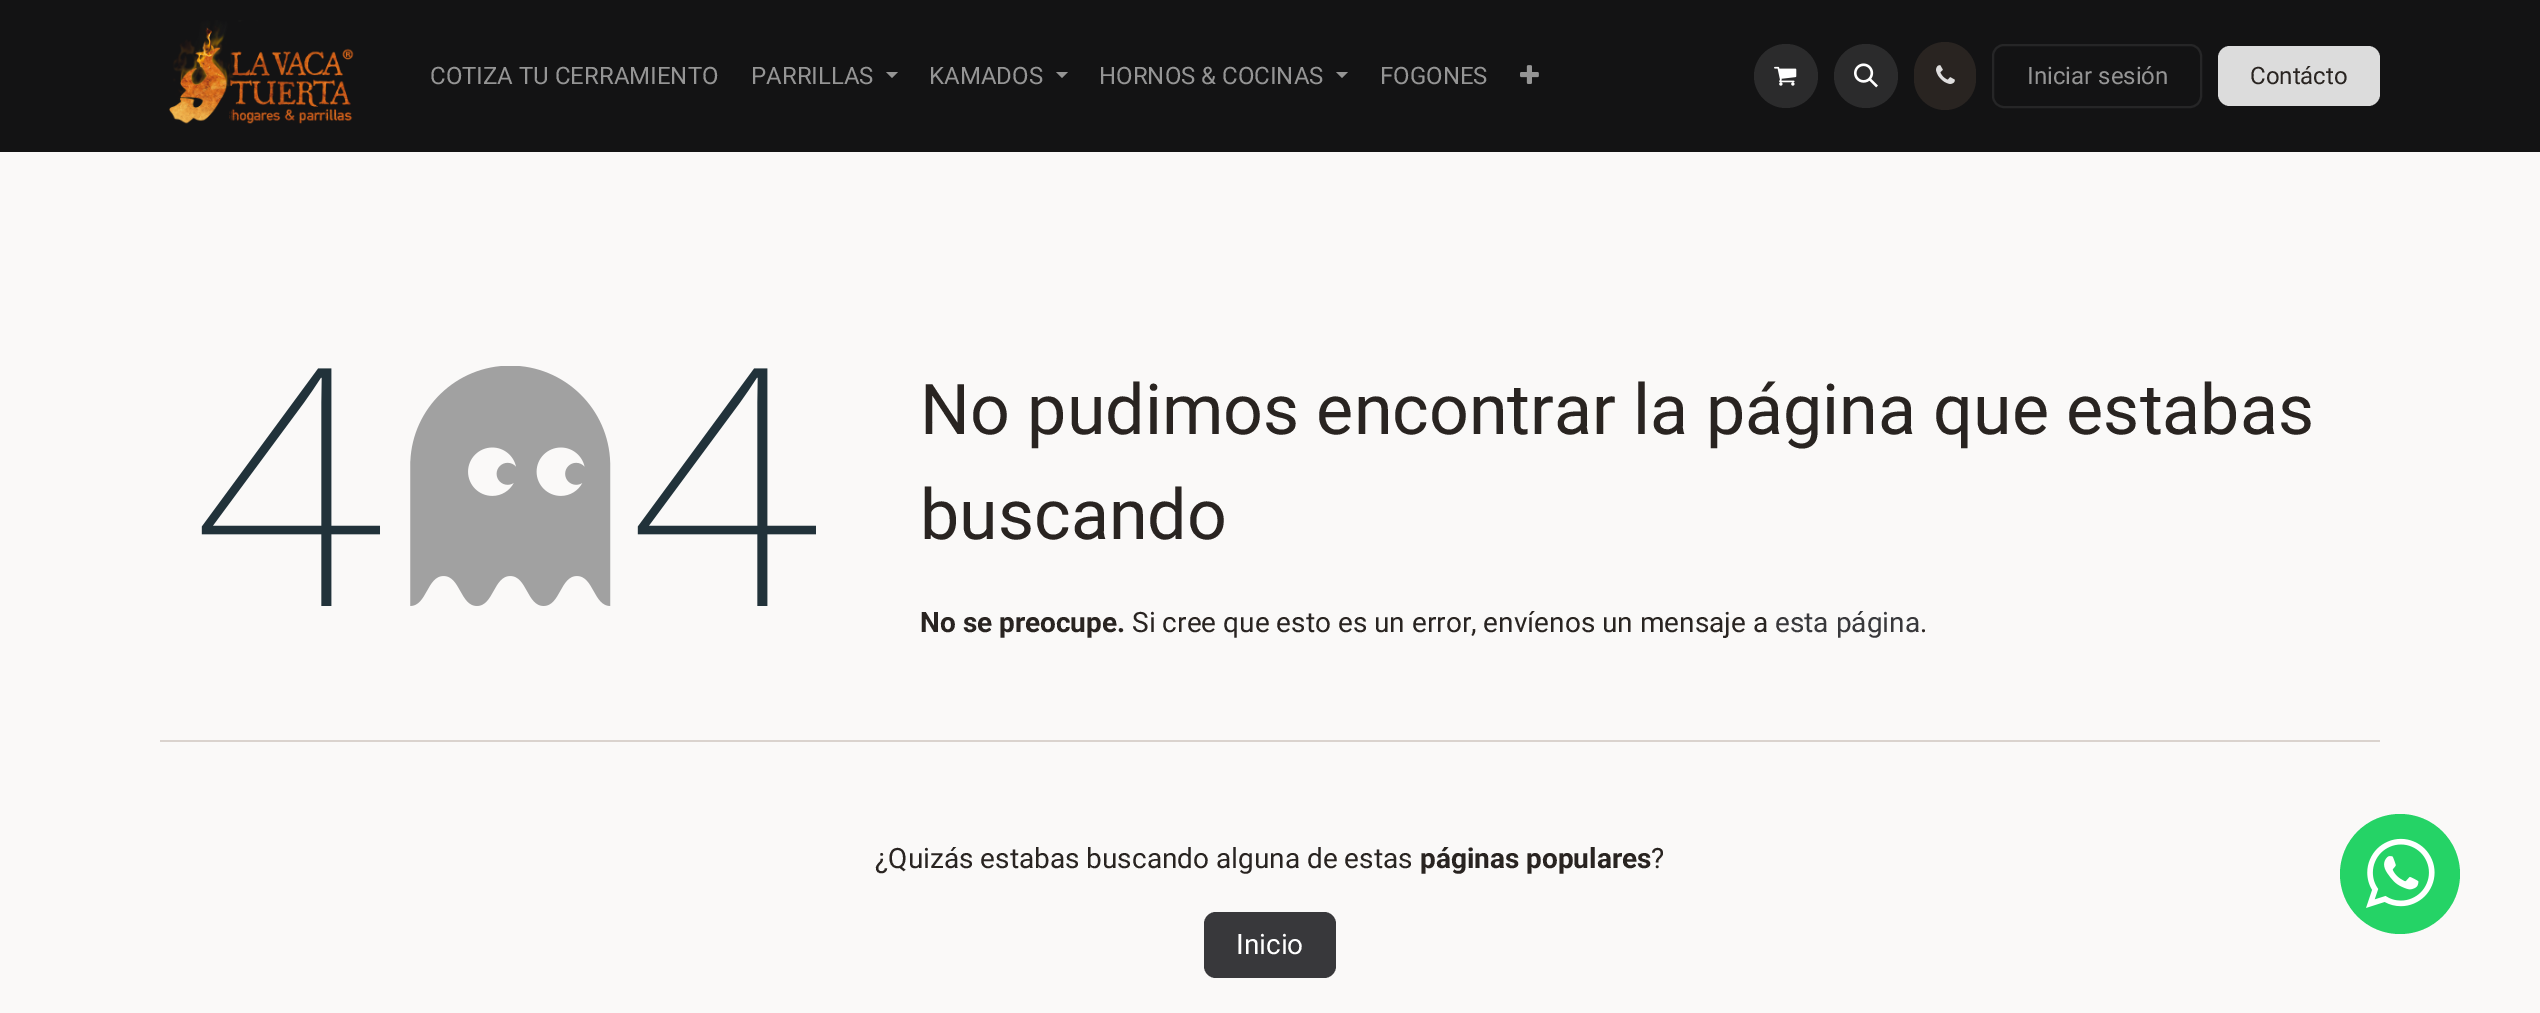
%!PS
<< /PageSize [2540 1013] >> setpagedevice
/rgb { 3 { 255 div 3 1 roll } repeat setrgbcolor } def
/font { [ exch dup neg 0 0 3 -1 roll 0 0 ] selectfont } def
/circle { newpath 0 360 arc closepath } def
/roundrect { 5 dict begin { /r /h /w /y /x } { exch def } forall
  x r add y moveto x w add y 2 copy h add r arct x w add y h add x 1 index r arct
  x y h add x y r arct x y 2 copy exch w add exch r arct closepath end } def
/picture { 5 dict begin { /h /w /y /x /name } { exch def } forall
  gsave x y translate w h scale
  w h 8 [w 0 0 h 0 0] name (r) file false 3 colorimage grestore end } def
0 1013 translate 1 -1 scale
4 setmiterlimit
250 249 248 rgb
0 0 2540 1013 rectfill
19 19 20 rgb
0 0 2540 152 rectfill
(img/1.rgb) 169 20 185 104 picture
149 149 149 rgb
886 72 moveto 898 72 lineto 892 78 lineto closepath fill
1056 72 moveto 1068 72 lineto 1062 78 lineto closepath fill
1336 72 moveto 1348 72 lineto 1342 78 lineto closepath fill
(img/2.rgb) 1520 65 19 19 picture
43 43 44 rgb
1786 76 32 circle fill
(img/3.rgb) 1774 66 23 20 picture
1866 76 32 circle fill
(img/4.rgb) 1854 63 24 25 picture
41 36 33 rgb
1914 42 62 68 31 roundrect fill
(img/5.rgb) 1936 65 19 19 picture
38 38 39 rgb
2 setlinewidth
1993 45 208 62 11 roundrect stroke
220 220 220 rgb
2218 46 162 60 12 roundrect fill
(img/6.rgb) 201 366 615 240 picture
218 211 206 rgb
160 740 2220 2 rectfill
56 56 59 rgb
1204 912 132 66 12 roundrect fill
37 211 102 rgb
2400 874 60 circle fill
(img/7.rgb) 2366 838 69 70 picture
/Roboto-Regular 24 font
149 149 149 rgb
[
  [(COTIZA TU CERRAMIENTO) 430 84]
  [(PARRILLAS) 751 84]
  [(KAMADOS) 929 84]
  [(HORNOS & COCINAS) 1099 84]
  [(FOGONES) 1380 84]
  [(Iniciar sesión) 2027 84]
] { aload pop moveto show } forall
41 36 33 rgb
2250 84 moveto (Contácto) show
/Roboto-Regular 70 font
920 434 moveto (No pudimos encontrar la página que estabas) show
920 539 moveto (buscando) show
/Roboto-Bold 28 font
920 632 moveto (No se preocupe.) show
/Roboto-Regular 28 font
1132 632 moveto (Si cree que esto es un error, envíenos un mensaje a) show
56 56 59 rgb
1775 632 moveto (esta página) show
41 36 33 rgb
1920 632 moveto (.) show
875 868 moveto (¿Quizás estabas buscando alguna de estas) show
/Roboto-Bold 28 font
1420 868 moveto (páginas populares) show
/Roboto-Regular 28 font
1651 868 moveto (?) show
255 255 255 rgb
1236 954 moveto (Inicio) show
showpage
